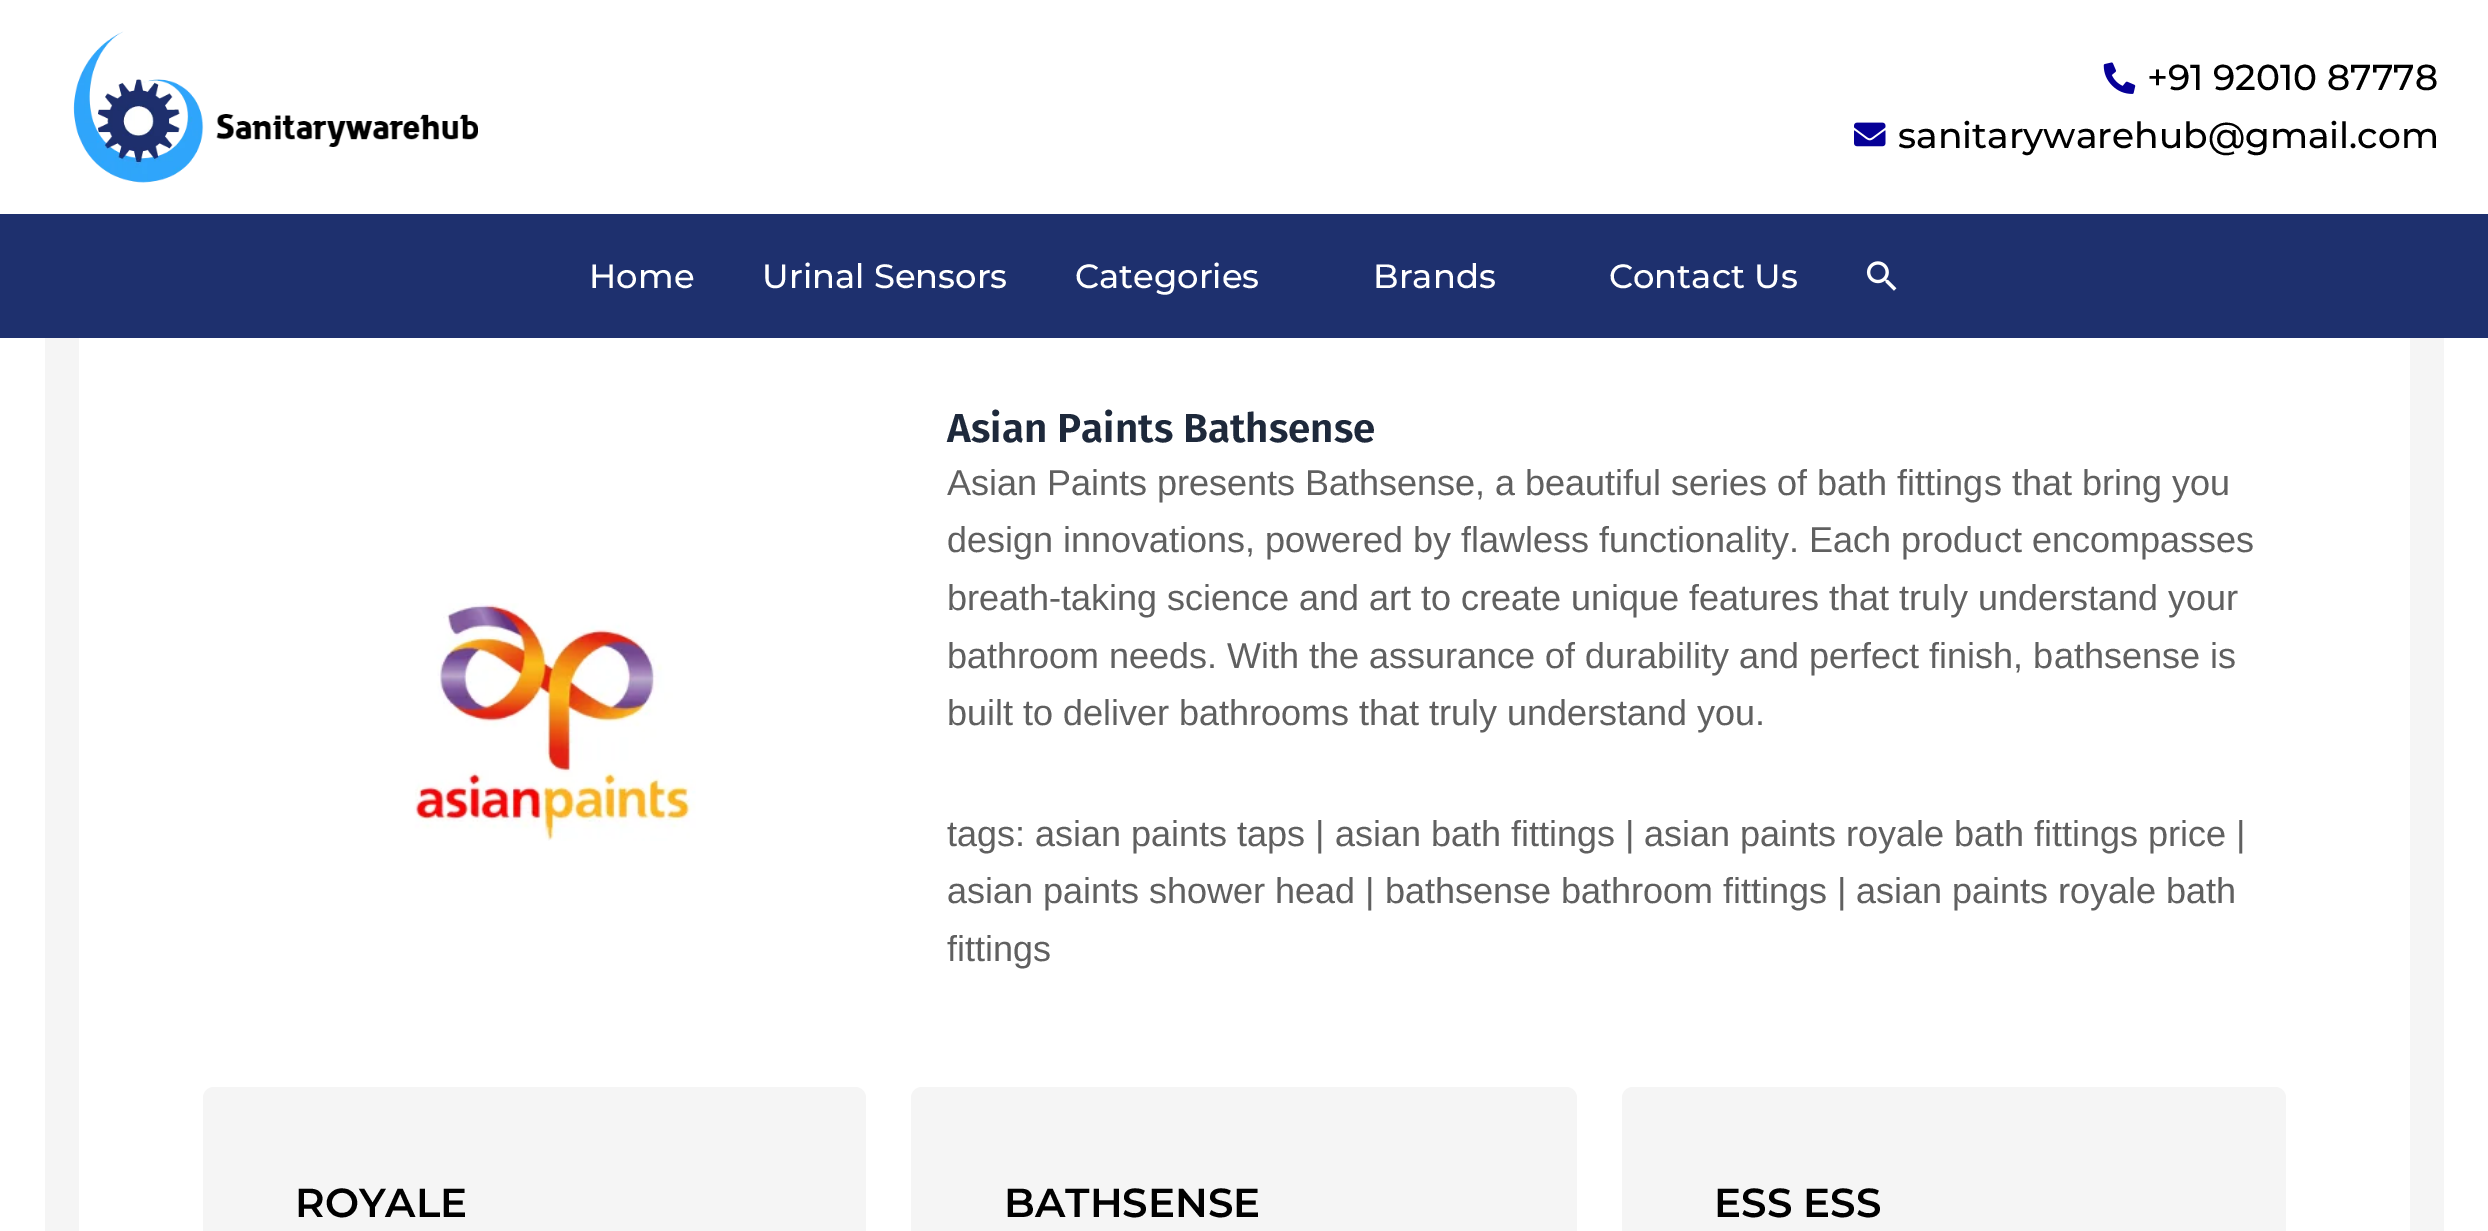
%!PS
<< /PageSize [2488 1231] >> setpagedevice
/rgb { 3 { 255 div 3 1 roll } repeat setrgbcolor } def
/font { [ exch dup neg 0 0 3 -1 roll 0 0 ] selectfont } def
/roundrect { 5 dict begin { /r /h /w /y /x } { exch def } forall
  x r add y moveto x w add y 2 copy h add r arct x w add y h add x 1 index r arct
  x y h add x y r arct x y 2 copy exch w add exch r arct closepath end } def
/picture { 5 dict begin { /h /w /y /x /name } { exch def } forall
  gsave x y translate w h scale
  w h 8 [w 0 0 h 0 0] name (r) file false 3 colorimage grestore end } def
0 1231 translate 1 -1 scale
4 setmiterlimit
255 255 255 rgb
0 0 2488 1231 rectfill
(img/1.rgb) 73 31 405 152 picture
(img/2.rgb) 2103 62 33 32 picture
(img/3.rgb) 1854 122 32 25 picture
30 48 110 rgb
0 214 2488 124 rectfill
(img/4.rgb) 1866 261 31 30 picture
245 245 245 rgb
45 338 2399 893 rectfill
255 255 255 rgb
79 338 2331 893 rectfill
(img/5.rgb) 414 603 282 238 picture
245 245 245 rgb
203 1087 663 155 11 roundrect fill
911 1087 666 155 11 roundrect fill
1622 1087 664 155 11 roundrect fill
/Montserrat-Medium 36 font
0 0 0 rgb
2147 90 moveto (+91 92010 87778) show
1898 148 moveto (sanitarywarehub@gmail.com) show
/Montserrat-Medium 33.75 font
255 255 255 rgb
[
  [(Home) 589 288]
  [(Urinal Sensors) 762 288]
  [(Categories) 1075 288]
  [(Brands) 1373 288]
  [(Contact Us) 1609 288]
] { aload pop moveto show } forall
/FiraSans-SemiBold 40.5 font
30 41 59 rgb
947 442 moveto (Asian Paints Bathsense) show
/LiberationSans-Regular 36 font
96 96 96 rgb
[
  [(Asian Paints presents Bathsense, a beautiful series of bath fittings that bring you) 947 495]
  [(design innovations, powered by flawless functionality. Each product encompasses) 947 552]
  [(breath-taking science and art to create unique features that truly understand your) 947 610]
  [(bathroom needs. With the assurance of durability and perfect finish, bathsense is) 947 668]
  [(built to deliver bathrooms that truly understand you.) 947 725]
  [(tags: asian paints taps | asian bath fittings | asian paints royale bath fittings price |) 947 846]
  [(asian paints shower head | bathsense bathroom fittings | asian paints royale bath) 947 903]
  [(fittings) 947 961]
] { aload pop moveto show } forall
/Montserrat-SemiBold 40.5 font
0 0 0 rgb
[
  [(ROYALE) 295 1217]
  [(BATHSENSE) 1004 1217]
  [(ESS ESS) 1714 1217]
] { aload pop moveto show } forall
showpage
